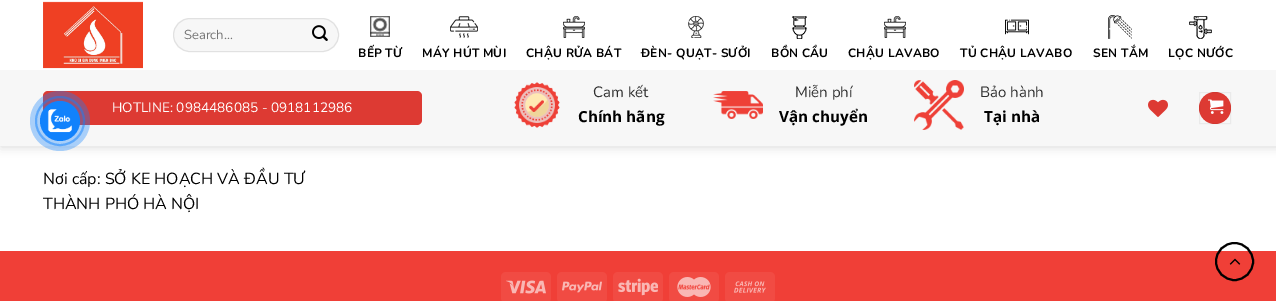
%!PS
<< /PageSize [1276 301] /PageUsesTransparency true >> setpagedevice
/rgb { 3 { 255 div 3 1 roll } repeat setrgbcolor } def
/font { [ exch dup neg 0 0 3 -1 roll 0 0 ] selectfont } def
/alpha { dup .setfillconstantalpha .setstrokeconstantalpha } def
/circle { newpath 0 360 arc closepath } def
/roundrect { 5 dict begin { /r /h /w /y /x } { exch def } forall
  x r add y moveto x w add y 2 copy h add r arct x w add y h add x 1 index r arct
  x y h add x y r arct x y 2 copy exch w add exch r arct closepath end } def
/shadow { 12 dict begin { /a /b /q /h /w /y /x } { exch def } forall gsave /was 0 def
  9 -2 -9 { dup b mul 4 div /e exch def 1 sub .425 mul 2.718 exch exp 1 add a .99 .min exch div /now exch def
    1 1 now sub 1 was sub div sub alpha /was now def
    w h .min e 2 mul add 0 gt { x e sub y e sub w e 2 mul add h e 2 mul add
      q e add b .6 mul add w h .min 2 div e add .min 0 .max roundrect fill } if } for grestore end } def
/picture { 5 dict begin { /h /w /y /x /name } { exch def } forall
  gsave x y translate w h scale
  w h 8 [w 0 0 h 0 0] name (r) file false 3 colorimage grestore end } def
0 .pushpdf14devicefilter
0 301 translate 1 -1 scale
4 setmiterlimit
255 255 255 rgb
0 0 1276 301 rectfill
0 0 0 rgb
1 1 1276 146 0 5 0.15 shadow
255 255 255 rgb
0 0 1276 70 rectfill
(img/1.rgb) 43 1 100 68 picture
247 247 247 rgb
173 18 166 34 17 roundrect fill
0.09 alpha
0 0 0 rgb
173.5 18.5 165 33 16.5 roundrect stroke
1 alpha
(img/2.rgb) 312 25 16 16 picture
(img/3.rgb) 370 16 20 21 picture
(img/4.rgb) 450 16 28 22 picture
(img/5.rgb) 563 16 22 22 picture
(img/6.rgb) 688 16 16 22 picture
(img/7.rgb) 792 16 15 23 picture
(img/5.rgb) 884 16 22 22 picture
(img/8.rgb) 1005 19 24 16 picture
(img/9.rgb) 1108 15 24 24 picture
(img/10.rgb) 1189 16 23 23 picture
247 247 247 rgb
0 70 1276 76 rectfill
221 58 51 rgb
43 91 379 34 5 roundrect fill
(img/11.rgb) 514 82 46 46 picture
(img/12.rgb) 713 91 50 28 picture
(img/13.rgb) 914 80 50 50 picture
(img/14.rgb) 1148 99 20 18 picture
1215 108 16 circle fill
0.05 alpha
0 0 0 rgb
1199.5 92.5 31 31 rectstroke
1 alpha
(img/15.rgb) 1208 99 16 15 picture
240 63 55 rgb
0 251 1276 50 rectfill
0 0 0 rgb
2 setlinewidth
1234.5 261.5 18.5 circle stroke
(img/16.rgb) 1229 258 12 7 picture
241 75 67 rgb
501 272 50 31 5 roundrect fill
(img/17.rgb) 506 280 40 14 picture
557 272 50 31 5 roundrect fill
(img/18.rgb) 562 281 40 12 picture
613 272 50 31 5 roundrect fill
(img/19.rgb) 618 278 40 18 picture
669 272 50 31 5 roundrect fill
(img/20.rgb) 677 277 34 20 picture
725 272 50 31 5 roundrect fill
(img/21.rgb) 734 281 32 12 picture
0.5 alpha
17 130 252 rgb
60 121 24 circle stroke
0.34 alpha
60 121 30 circle fill
1 alpha
60 121 20 circle fill
(img/22.rgb) 47 109 25 24 picture
/Nunito-Regular 13 font
117 117 117 rgb
184 39 moveto (Search…) show
/Nunito-Bold 12 font
0 0 0 rgb
358 57 moveto 0.25 0 (BẾP TỪ) ashow
422 57 moveto 0.25 0 (MÁY HÚT MÙI) ashow
526 57 moveto 0.25 0 (CHẬU RỬA BÁT) ashow
641 57 moveto 0.25 0 (ĐÈN- QUẠT- SƯỞI) ashow
771 57 moveto 0.25 0 (BỒN CẦU) ashow
848 57 moveto 0.25 0 (CHẬU LAVABO) ashow
960 57 moveto 0.25 0 (TỦ CHẬU LAVABO) ashow
1093 57 moveto 0.25 0 (SEN TẮM) ashow
1168 57 moveto 0.25 0 (LỌC NƯỚC) ashow
/Nunito-Regular 13.6 font
255 255 255 rgb
112 112 moveto (HOTLINE: 0984486085 - 0918112986) show
/Nunito-Regular 15 font
47 47 47 rgb
593 97 moveto (Cam kết) show
/OpenSans-Bold 15.25 font
0 0 0 rgb
578 122 moveto (Chính hãng) show
/Nunito-Regular 15 font
47 47 47 rgb
795 97 moveto (Miễn phí) show
/OpenSans-Bold 15.25 font
0 0 0 rgb
779 122 moveto (Vận chuyển) show
/Nunito-Regular 15 font
47 47 47 rgb
980 97 moveto (Bảo hành) show
/OpenSans-Bold 15.25 font
0 0 0 rgb
984 122 moveto (Tại nhà) show
/Nunito-Regular 16 font
43 184 moveto (Nơi cấp: SỞ KE HOẠCH VÀ ĐẦU TƯ) show
43 209 moveto (THÀNH PHÓ HÀ NỘI) show
.poppdf14devicefilter showpage
